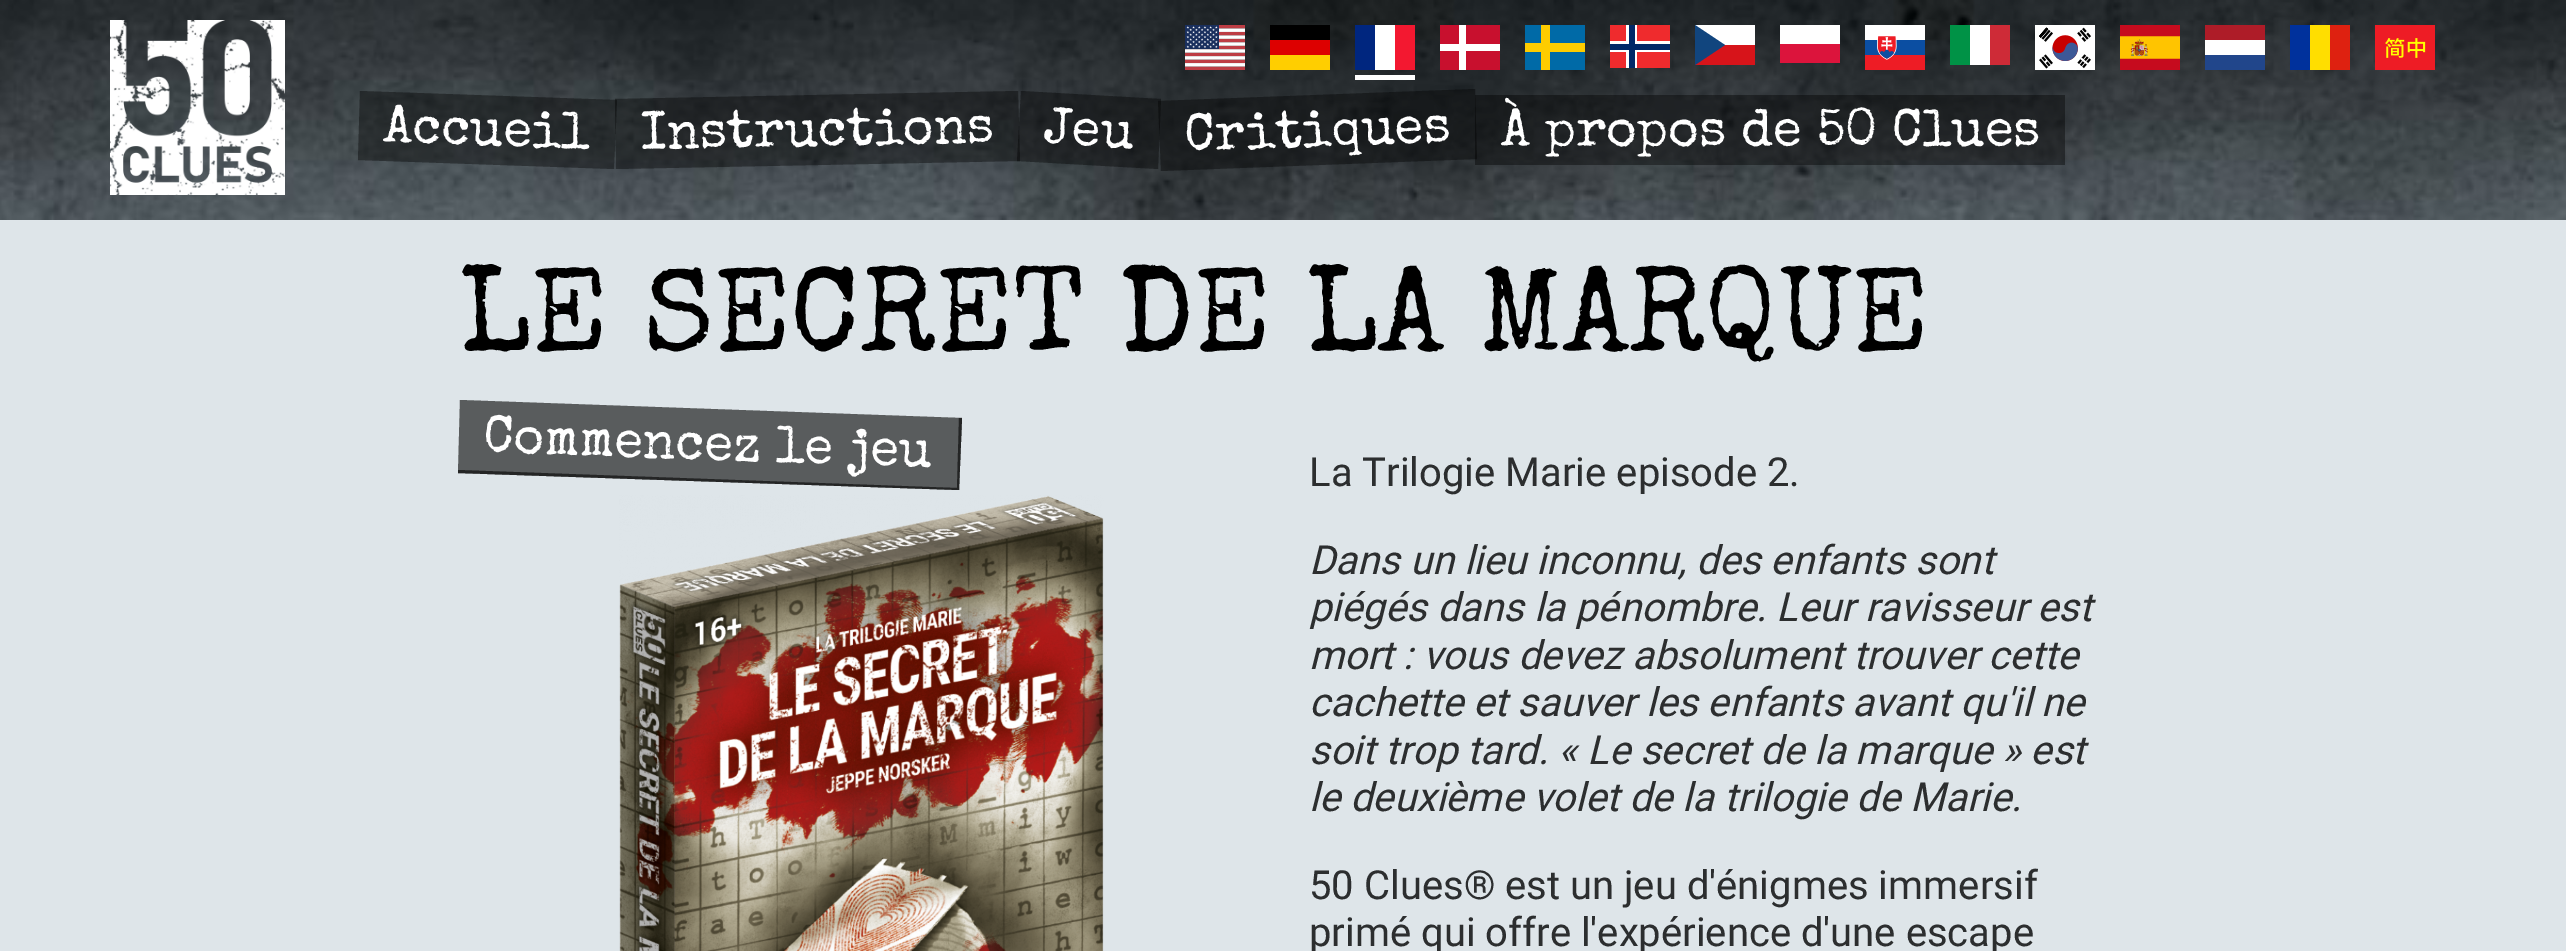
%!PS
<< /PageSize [2566 951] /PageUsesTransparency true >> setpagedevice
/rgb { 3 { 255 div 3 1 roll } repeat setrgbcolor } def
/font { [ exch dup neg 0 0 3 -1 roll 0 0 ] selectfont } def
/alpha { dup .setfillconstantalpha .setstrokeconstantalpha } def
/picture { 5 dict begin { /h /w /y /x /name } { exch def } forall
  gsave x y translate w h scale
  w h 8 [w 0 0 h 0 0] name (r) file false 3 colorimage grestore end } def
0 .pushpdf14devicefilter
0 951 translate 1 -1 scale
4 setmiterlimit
222 229 233 rgb
0 0 2566 951 rectfill
(img/1.rgb) 0 0 2566 220 picture
(img/2.rgb) 1185 25 60 45 picture
[
  [1270 55 60 15 255 206 0]
  [1270 25 60 15 0 0 0]
  [1270 40 60 15 221 0 0]
  [1355 75 60 5 255 255 255]
  [1375 25 20 45 255 255 255]
  [1355 25 20 45 0 38 127]
  [1395 25 20 45 243 24 48]
  [1440 25 60 45 200 16 46]
  [1459 25 7 45 255 255 255]
  [1440 44 60 7 255 255 255]
] { aload pop rgb rectfill } forall
0 106 167 rgb
1525 70 moveto 1542 70 lineto 1542 52 lineto 1525 52 lineto closepath 1525 25 moveto 1525 43 lineto 1542 43 lineto 1542 25 lineto closepath eofill
[
  [1525 43 16 9 254 204 0]
  [1541 25 9 45 254 204 0]
  [1550 43 35 9 254 204 0]
] { aload pop rgb rectfill } forall
0 106 167 rgb
1550 52 moveto 1550 70 lineto 1585 70 lineto 1585 52 lineto closepath 1550 25 moveto 1550 43 lineto 1585 43 lineto 1585 25 lineto closepath eofill
[
  [1610 25 60 43 239 43 45]
  [1626 25 11 43 255 255 255]
  [1610 41 60 11 255 255 255]
  [1629 25 6 43 0 40 104]
  [1610 44 60 6 0 40 104]
  [1695 45 60 20 215 20 26]
  [1695 25 60 20 255 255 255]
] { aload pop rgb rectfill } forall
17 69 126 rgb
1725 45 moveto 1695 25 lineto 1695 65 lineto closepath fill
255 255 255 rgb
1780 25 60 19 rectfill
220 20 60 rgb
1780 44 60 19 rectfill
(img/3.rgb) 1865 25 60 45 picture
[
  [1950 25 20 40 0 146 70]
  [1970 25 20 40 255 255 255]
  [1990 25 20 40 206 43 55]
] { aload pop rgb rectfill } forall
(img/4.rgb) 2035 25 60 45 picture
(img/5.rgb) 2120 25 60 45 picture
[
  [2205 40 60 15 255 255 255]
  [2205 55 60 15 33 70 139]
  [2205 25 60 15 174 28 40]
  [2290 25 20 45 0 49 156]
  [2310 25 20 45 255 222 0]
  [2330 25 20 45 222 33 16]
] { aload pop rgb rectfill } forall
(img/6.rgb) 2375 25 60 45 picture
(img/7.rgb) 110 20 175 175 picture
0.4 alpha
0 0 0 rgb
360 91 moveto 617 100 lineto 614 169 lineto 358 160 lineto closepath fill
615 99 moveto 1018 91 lineto 1020 161 lineto 616 169 lineto closepath fill
1021 91 moveto 1161 99 lineto 1158 169 lineto 1017 161 lineto closepath fill
1158 101 moveto 1475 89 lineto 1477 159 lineto 1161 171 lineto closepath fill
1475 95 590 70 rectfill
1 alpha
89 92 93 rgb
460 400 moveto 962 418 lineto 959 490 lineto 458 473 lineto closepath fill
0.6 alpha
0 0 0 rgb
962 418 moveto 959 490 lineto 957 488 lineto 959 418 lineto closepath fill
959 490 moveto 458 473 lineto 458 470 lineto 957 488 lineto closepath fill
1 alpha
(img/8.rgb) 619 495 485 456 picture
/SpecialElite-Regular 52.5 font
255 255 255 rgb
gsave 383 141 translate 2 rotate 0 0 moveto (Accueil) show grestore
gsave 641 148 translate -1 rotate 0 0 moveto (Instructions) show grestore
gsave 1043 143 translate 3 rotate 0 0 moveto (Jeu) show grestore
gsave 1185 150 translate -2 rotate 0 0 moveto (Critiques) show grestore
1501 145 moveto (À propos de 50 Clues) show
/SpecialElite-Regular 120 font
0 0 0 rgb
459 350 moveto (LE SECRET DE LA MARQUE) show
/SpecialElite-Regular 52.5 font
255 255 255 rgb
gsave 483 451 translate 2 rotate 0 0 moveto (Commencez le jeu) show grestore
/Roboto-Regular 40 font
44 46 47 rgb
1309 486 moveto (La Trilogie Marie episode 2.) show
/Roboto-Italic 40 font
[
  [(Dans un lieu inconnu, des enfants sont) 1309 574]
  [(piégés dans la pénombre. Leur ravisseur est) 1309 621]
  [(mort : vous devez absolument trouver cette) 1309 669]
  [(cachette et sauver les enfants avant qu'il ne) 1309 716]
  [(soit trop tard. « Le secret de la marque » est) 1309 764]
  [(le deuxième volet de la trilogie de Marie.) 1309 811]
] { aload pop moveto show } forall
/Roboto-Regular 40 font
1309 899 moveto (50 Clues® est un jeu d'énigmes immersif) show
1309 946 moveto (primé qui offre l'expérience d'une escape) show
.poppdf14devicefilter showpage
